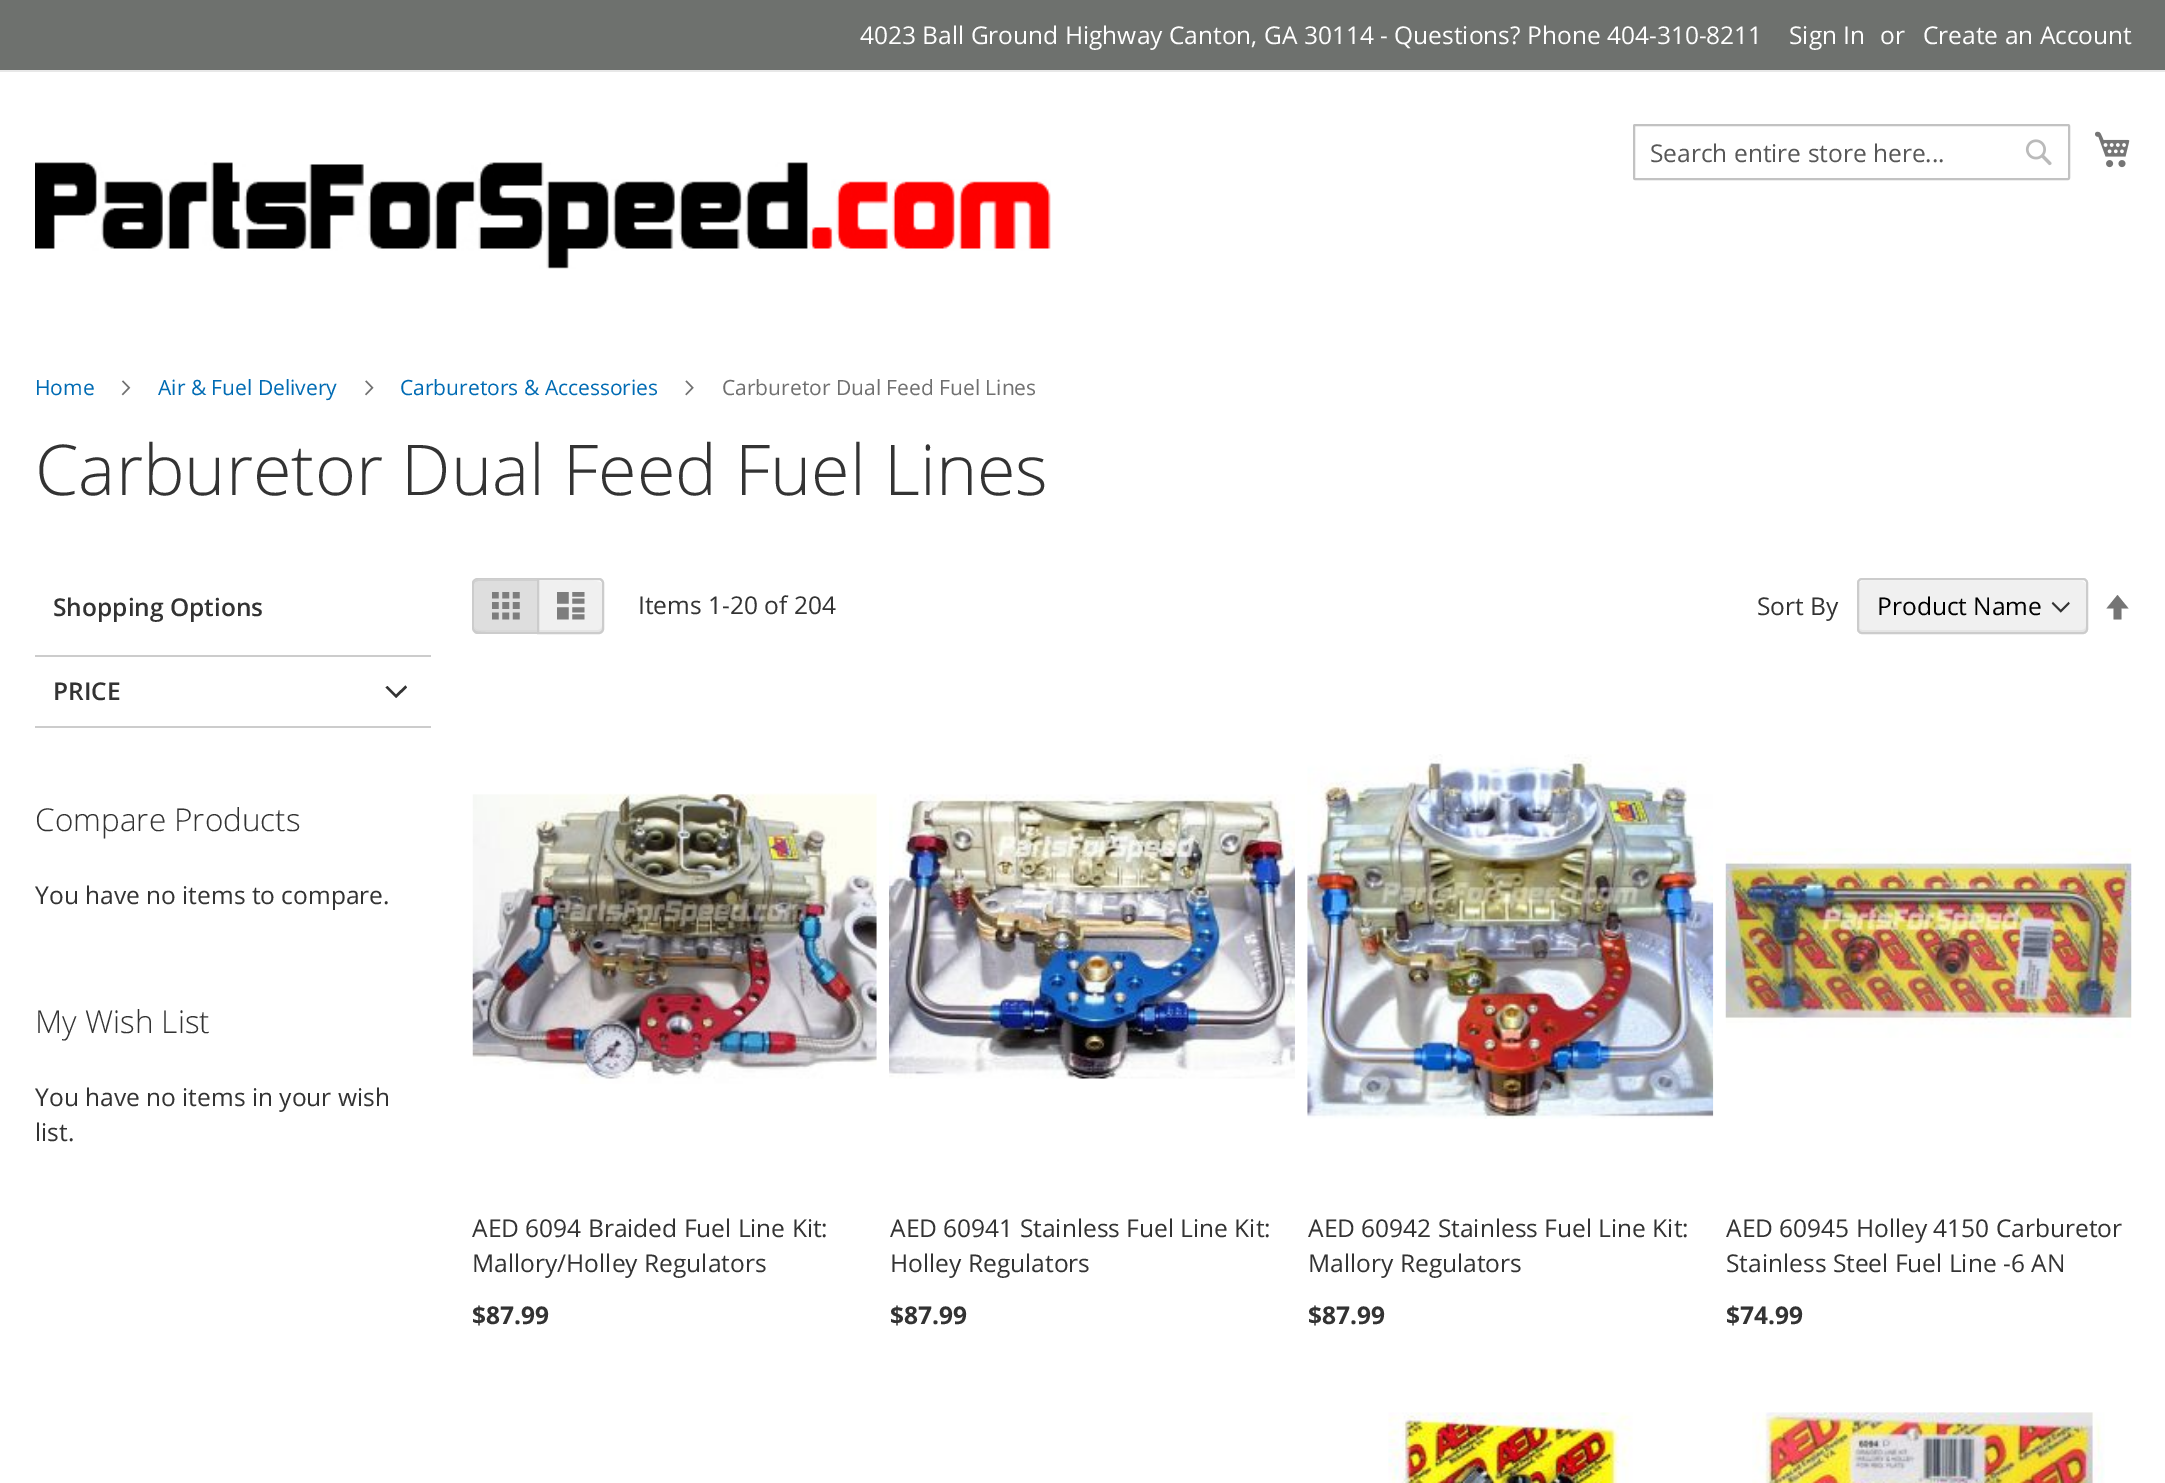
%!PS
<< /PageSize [2165 1483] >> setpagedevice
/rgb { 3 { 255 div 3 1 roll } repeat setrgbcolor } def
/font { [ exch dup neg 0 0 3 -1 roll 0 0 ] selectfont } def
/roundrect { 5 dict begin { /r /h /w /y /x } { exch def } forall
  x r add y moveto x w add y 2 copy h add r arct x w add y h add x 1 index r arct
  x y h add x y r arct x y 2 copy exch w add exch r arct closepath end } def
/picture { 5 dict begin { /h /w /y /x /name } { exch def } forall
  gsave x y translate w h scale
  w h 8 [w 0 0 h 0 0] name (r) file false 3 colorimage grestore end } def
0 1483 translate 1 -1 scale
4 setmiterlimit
255 255 255 rgb
0 0 2165 1483 rectfill
110 113 110 rgb
0 0 2165 70 rectfill
232 232 232 rgb
0 70 2165 2 rectfill
194 194 194 rgb
2 setlinewidth
1634 125 435 54 1 roundrect stroke
(img/1.rgb) 2025 139 27 27 picture
(img/2.rgb) 2095 131 35 37 picture
(img/3.rgb) 35 162 1016 107 picture
(img/4.rgb) 121 380 10 16 picture
(img/5.rgb) 365 380 9 16 picture
(img/6.rgb) 685 380 9 16 picture
204 204 204 rgb
35 655 396 2 rectfill
35 726 396 2 rectfill
51 51 51 rgb
396 694.5 moveto 387.5 686 lineto 385.5 687.5 lineto 396 698 lineto 407 687.5 lineto 405.5 685.5 lineto closepath fill
222 222 222 rgb
478 578 moveto 537 578 lineto 537 634 lineto 478 634 lineto 475 634 473 632 473 629 curveto 473 583 lineto 473 580 475 578 478 578 curveto closepath fill
217 217 217 rgb
474 627 moveto 474 628 lineto 474 630 476 632 478 632 curveto 537 632 lineto 537 630 lineto 490 630 lineto 486 630 479 631 476 629 curveto closepath fill
208 208 208 rgb
478 581 moveto 537 581 lineto 537 579 lineto 478 579 lineto 476 579 474 581 474 583 curveto 474 584 lineto 475 582 lineto closepath fill
204 204 204 rgb
478 578 moveto 537 578 lineto 537 634 lineto 478 634 lineto 475 634 472 631 472 628 curveto 472 583 lineto 472 580 475 578 478 578 curveto closepath 478 579 moveto 537 579 lineto 537 632 lineto 530 632 478 633 476 631 curveto 474 629 lineto 474 582 lineto 475 580 lineto closepath eofill
(img/7.rgb) 492 592 28 28 picture
240 240 240 rgb
537 578 moveto 599 578 lineto 602 578 604 580 604 583 curveto 604 629 lineto 604 632 602 634 599 634 curveto 537 634 lineto closepath fill
229 229 229 rgb
539 630 moveto 539 632 lineto 598 632 lineto 600 632 602 630 602 628 curveto 602 626 lineto 602 628 600 630 598 630 curveto closepath fill
255 255 255 rgb
539 581 moveto 590 581 602 579 602 584 curveto 602 583 lineto 602 581 600 579 598 579 curveto 539 579 lineto closepath fill
204 204 204 rgb
538 579 moveto 599 579 lineto 601 579 603 581 603 583 curveto 603 629 lineto 603 631 601 633 599 633 curveto 538 633 lineto closepath stroke
(img/8.rgb) 557 592 28 28 picture
240 240 240 rgb
1857 578 231 56 5 roundrect fill
(img/9.rgb) 2051 601 19 12 picture
229 229 229 rgb
1859 629 moveto 1859 630 1861 632 1863 632 curveto 2082 632 lineto 2084 632 2086 630 2086 628 curveto 2086 626 lineto 2086 628 2084 630 2082 630 curveto 1862 630 lineto 1861 630 1860 629 1859 629 curveto closepath fill
255 255 255 rgb
1862 581 moveto 2082 581 lineto 2084 581 2086 583 2086 584 curveto 2086 581 2085 579 2082 579 curveto 1863 579 lineto 1861 579 1859 580 1859 582 curveto closepath fill
204 204 204 rgb
1858 579 229 54 4 roundrect stroke
117 117 117 rgb
2117.5 595 moveto 2106.5 608.5 lineto 2113.5 608.5 lineto 2113.5 619.5 lineto 2121.5 619.5 lineto 2121.5 608.5 lineto 2128.5 608.5 lineto closepath fill
(img/10.rgb) 472 793 405 291 picture
(img/11.rgb) 889 794 406 285 picture
(img/12.rgb) 1307 754 407 365 picture
(img/13.rgb) 1725 848 407 190 picture
(img/14.rgb) 1388 1412 245 71 picture
(img/15.rgb) 1752 1412 353 71 picture
/OpenSans-Regular 24.5 font
255 255 255 rgb
[
  [(4023 Ball Ground Highway Canton, GA 30114 - Questions? Phone 404-310-8211) 860 44]
  [(Sign In) 1789 44]
  [(or) 1880 44]
  [(Create an Account) 1923 44]
] { aload pop moveto show } forall
87 87 87 rgb
1650 162 moveto (Search entire store here...) show
/OpenSans-Regular 21 font
0 107 180 rgb
[
  [(Home) 35 395]
  [(Air & Fuel Delivery) 158 395]
  [(Carburetors & Accessories) 400 395]
] { aload pop moveto show } forall
112 112 112 rgb
722 395 moveto (Carburetor Dual Feed Fuel Lines) show
/OpenSans-Light 70 font
51 51 51 rgb
35 495 moveto (Carburetor Dual Feed Fuel Lines) show
/OpenSans-SemiBold 24.5 font
53 616 moveto (Shopping Options) show
53 700 moveto (PRICE) show
/OpenSans-Regular 24.5 font
638 614 moveto (Items 1-20 of 204) show
1757 615 moveto (Sort By) show
0 0 0 rgb
1877 615 moveto (Product Name) show
51 51 51 rgb
472 1237 moveto (AED 6094 Braided Fuel Line Kit:) show
472 1272 moveto (Mallory/Holley Regulators) show
/OpenSans-Bold 24.5 font
472 1324 moveto ($87.99) show
/OpenSans-Regular 24.5 font
890 1237 moveto (AED 60941 Stainless Fuel Line Kit:) show
890 1272 moveto (Holley Regulators) show
/OpenSans-Bold 24.5 font
890 1324 moveto ($87.99) show
/OpenSans-Regular 24.5 font
1308 1237 moveto (AED 60942 Stainless Fuel Line Kit:) show
1308 1272 moveto (Mallory Regulators) show
/OpenSans-Bold 24.5 font
1308 1324 moveto ($87.99) show
/OpenSans-Regular 24.5 font
1726 1237 moveto (AED 60945 Holley 4150 Carburetor) show
1726 1272 moveto (Stainless Steel Fuel Line -6 AN) show
/OpenSans-Bold 24.5 font
1726 1324 moveto ($74.99) show
/OpenSans-Light 31.5 font
35 831 moveto (Compare Products) show
/OpenSans-Regular 24.5 font
35 904 moveto (You have no items to compare.) show
/OpenSans-Light 31.5 font
35 1033 moveto (My Wish List) show
/OpenSans-Regular 24.5 font
35 1106 moveto (You have no items in your wish) show
35 1141 moveto (list.) show
showpage
